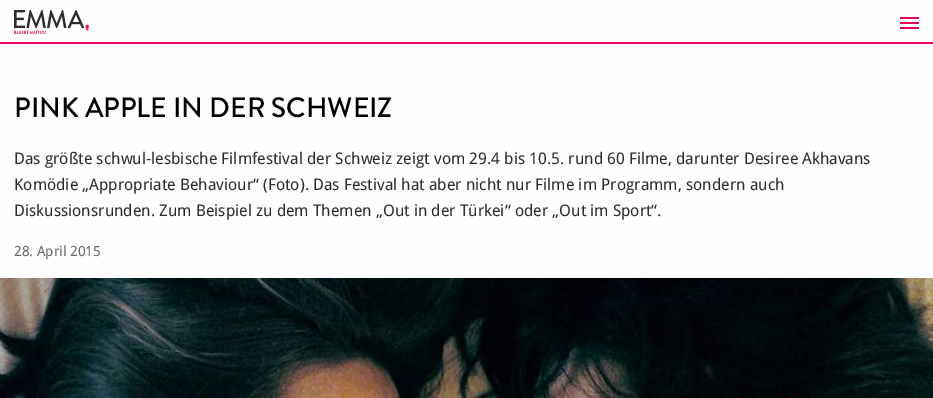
%!PS
<< /PageSize [933 398] >> setpagedevice
/rgb { 3 { 255 div 3 1 roll } repeat setrgbcolor } def
/font { [ exch dup neg 0 0 3 -1 roll 0 0 ] selectfont } def
/picture { 5 dict begin { /h /w /y /x /name } { exch def } forall
  gsave x y translate w h scale
  w h 8 [w 0 0 h 0 0] name (r) file false 3 colorimage grestore end } def
0 398 translate 1 -1 scale
4 setmiterlimit
254 254 254 rgb
0 0 933 398 rectfill
230 0 96 rgb
0 42 933 2 rectfill
(img/1.rgb) 14 10 75 24 picture
[
  [900 22 19 2 230 0 96]
  [900 17 19 2 230 0 96]
  [900 27 19 2 230 0 96]
] { aload pop rgb rectfill } forall
(img/2.rgb) 0 278 933 120 picture
/BrandonGrotesque-Medium 28 font
0 0 0 rgb
14 117 moveto (PINK APPLE IN DER SCHWEIZ) show
/DroidSans-Regular 16 font
43 43 43 rgb
[
  [(Das größte schwul-lesbische Filmfestival der Schweiz zeigt vom 29.4 bis 10.5. rund 60 Filme, darunter Desiree Akhavans) 14 164]
  [(Komödie „Appropriate Behaviour“ \(Foto\). Das Festival hat aber nicht nur Filme im Programm, sondern auch) 14 190]
  [(Diskussionsrunden. Zum Beispiel zu dem Themen „Out in der Türkei“ oder „Out im Sport“.) 14 216]
] { aload pop moveto show } forall
/DroidSans-Regular 14 font
102 102 102 rgb
14 256 moveto (28. April 2015) show
showpage
